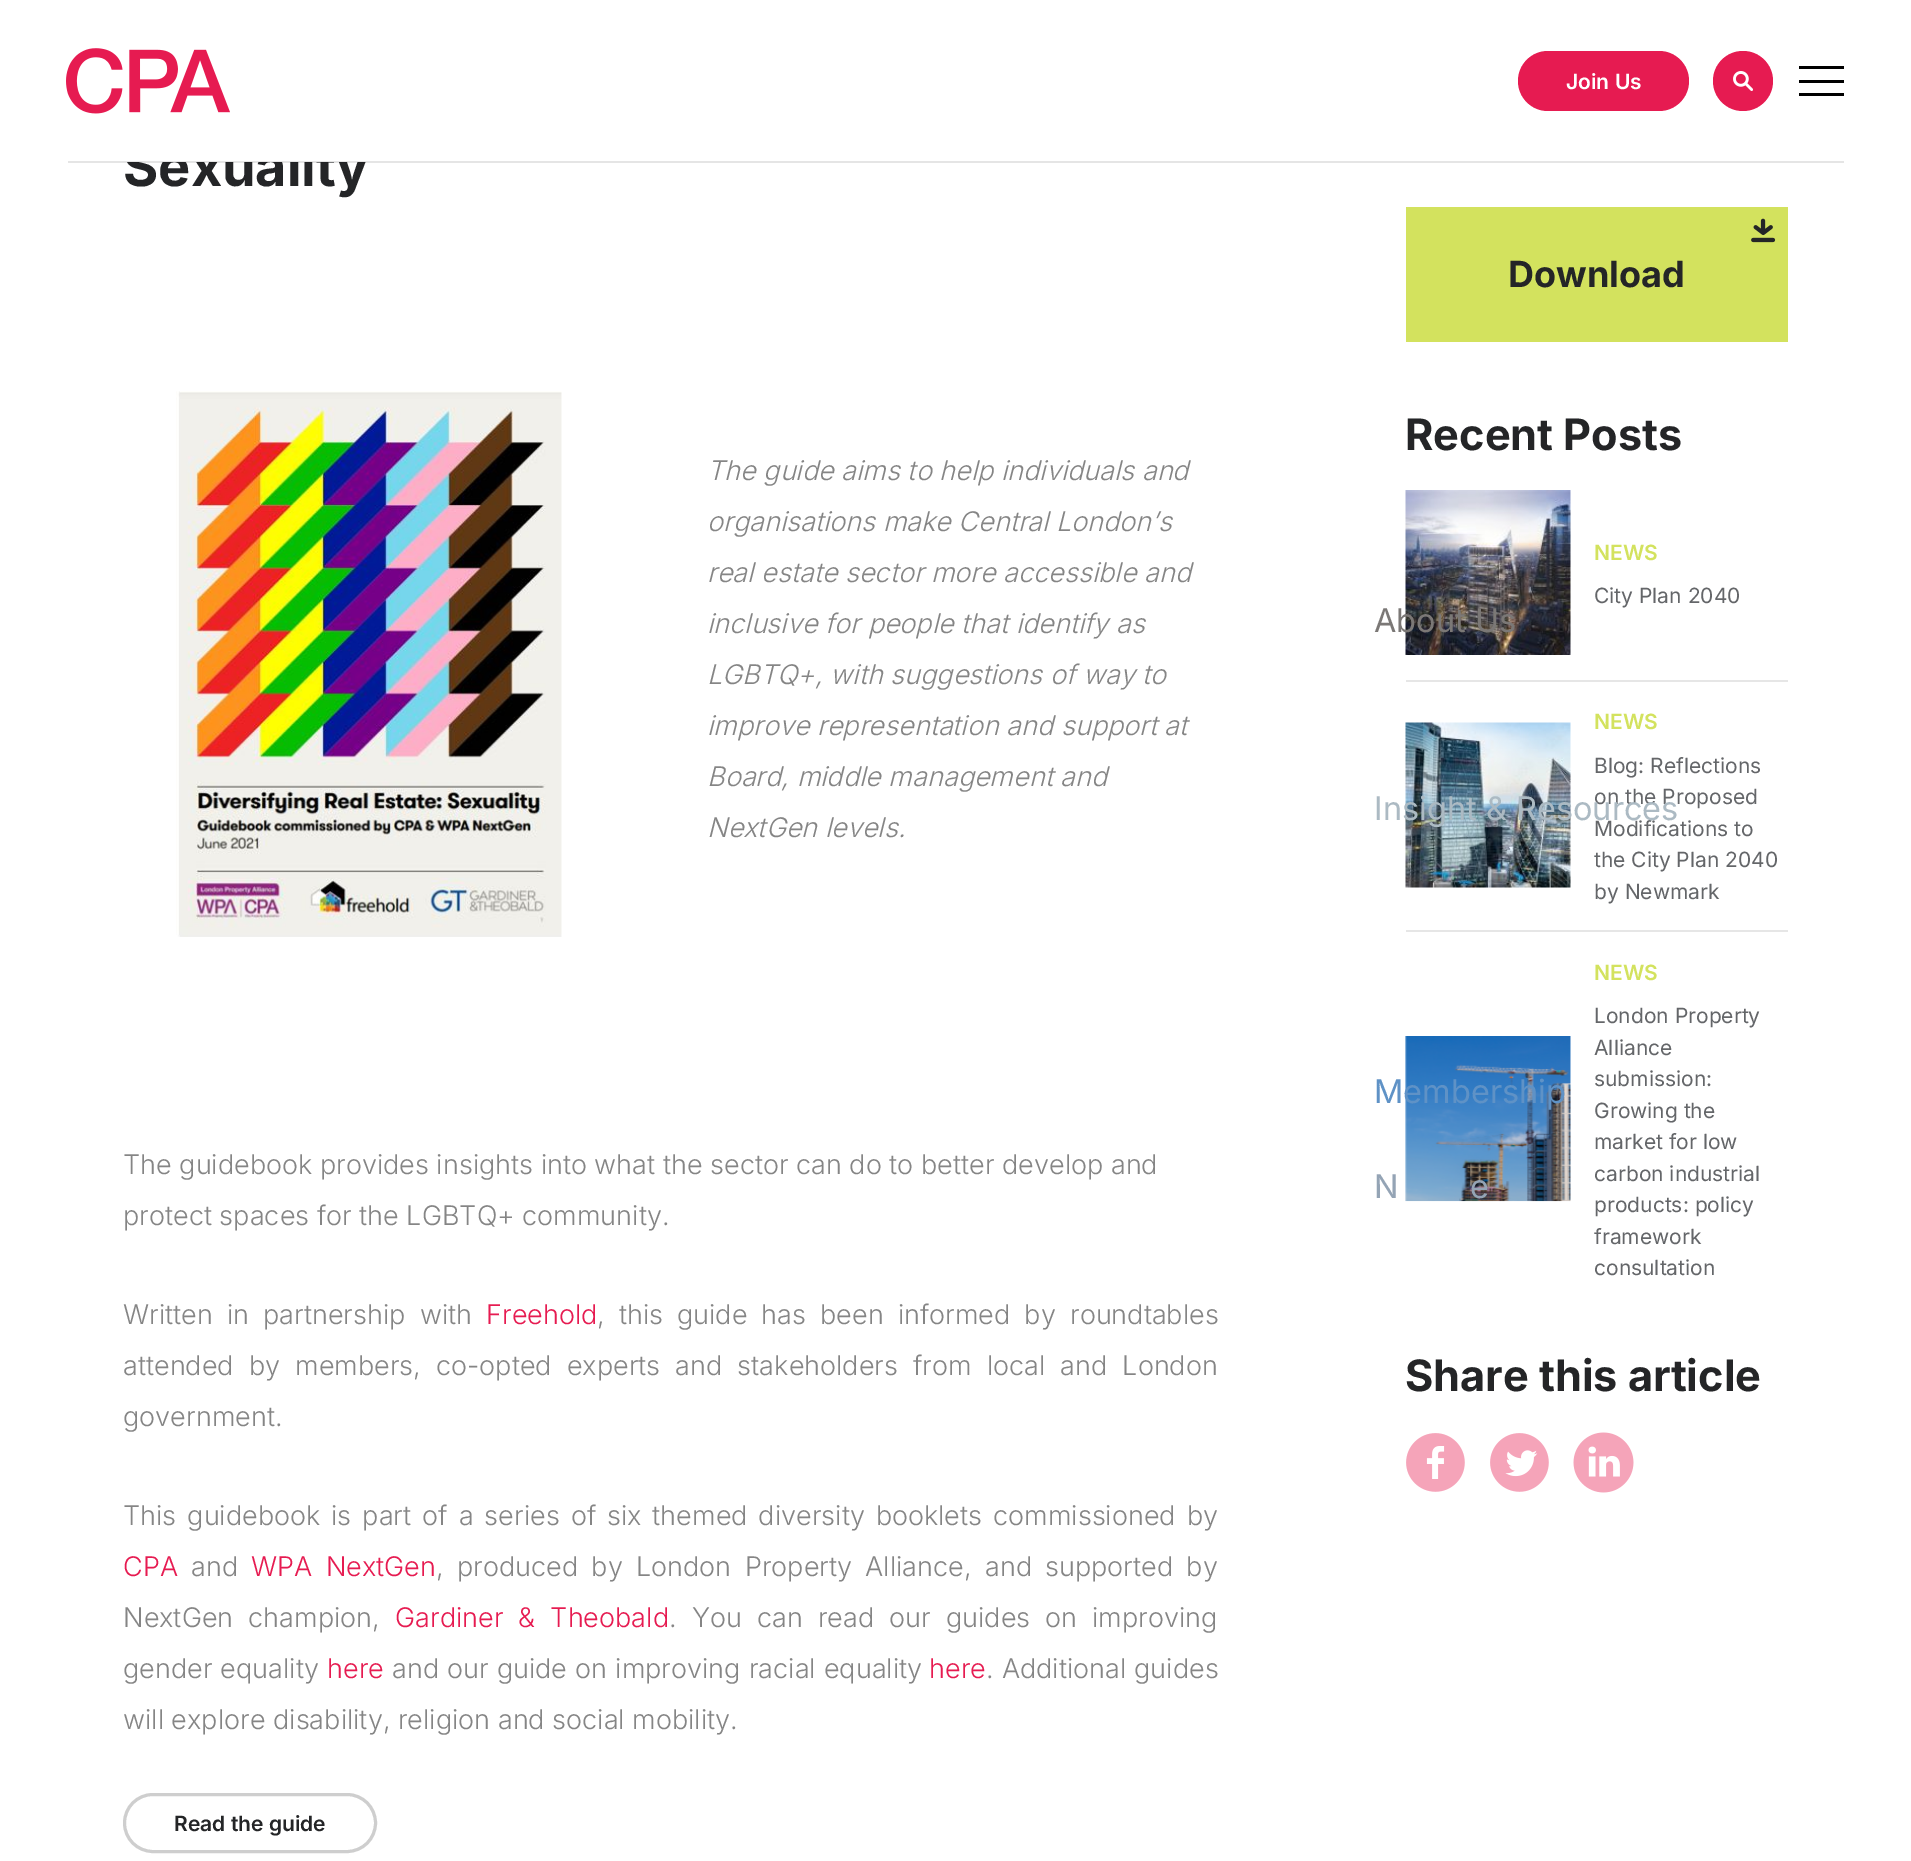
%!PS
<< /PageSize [1911 1861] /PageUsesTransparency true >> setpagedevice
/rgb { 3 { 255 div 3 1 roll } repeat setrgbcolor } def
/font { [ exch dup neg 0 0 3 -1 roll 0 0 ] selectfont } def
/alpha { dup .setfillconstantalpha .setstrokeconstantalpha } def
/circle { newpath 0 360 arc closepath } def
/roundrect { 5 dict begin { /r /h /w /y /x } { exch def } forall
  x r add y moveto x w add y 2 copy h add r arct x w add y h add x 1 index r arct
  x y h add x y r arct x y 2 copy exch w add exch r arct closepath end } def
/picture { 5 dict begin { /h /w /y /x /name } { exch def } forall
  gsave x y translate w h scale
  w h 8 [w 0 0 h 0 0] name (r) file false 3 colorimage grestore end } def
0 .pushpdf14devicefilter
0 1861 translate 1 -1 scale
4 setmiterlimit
255 255 255 rgb
0 0 1911 1861 rectfill
(img/1.rgb) 66 48 164 66 picture
230 27 81 rgb
1518 51 171 60 30 roundrect fill
1743 81 30 circle fill
(img/2.rgb) 1733 71 20 20 picture
[
  [1799 66 45 3 0 0 0]
  [1799 80 45 3 0 0 0]
  [1799 93 45 3 0 0 0]
] { aload pop rgb rectfill } forall
(img/3.rgb) 176 391 386 546 picture
206 206 206 rgb
3 setlinewidth
124.5 1794.5 251 57 28.5 roundrect stroke
211 226 94 rgb
1406 207 382 135 rectfill
(img/4.rgb) 1751 218 25 25 picture
230 230 230 rgb
1406 680 382 2 rectfill
(img/5.rgb) 1405 490 166 165 picture
1406 930 382 2 rectfill
(img/6.rgb) 1405 722 166 166 picture
(img/7.rgb) 1405 1036 166 166 picture
(img/8.rgb) 1406 1433 59 59 picture
(img/9.rgb) 1490 1433 59 59 picture
(img/10.rgb) 1573 1432 61 61 picture
/Inter-SemiBold 21 font
255 255 255 rgb
1566 89 moveto (Join Us) show
/Inter-Bold 54 font
36 37 39 rgb
123 186 moveto (Sexuality) show
255 255 255 rgb
126 144 242 18 rectfill
0.1 alpha
0 0 0 rgb
68 161 1776 2 rectfill
/Inter-LightItalic 27 font
1 alpha
133 133 133 rgb
[
  [(The guide aims to help individuals and) 707 480]
  [(organisations make Central London’s) 707 531]
  [(real estate sector more accessible and) 707 582]
  [(inclusive for people that identify as) 707 633]
  [(LGBTQ+, with suggestions of way to) 707 684]
  [(improve representation and support at) 707 735]
  [(Board, middle management and) 707 786]
  [(NextGen levels.) 707 837]
] { aload pop moveto show } forall
/Inter-Light 27 font
123 1174 moveto (The guidebook provides insights into what the sector can do to better develop and) show
123 1225 moveto (protect spaces for the LGBTQ+ community.) show
123 1324 moveto 6.5 0 32 (Written in partnership with) widthshow
230 27 81 rgb
486 1324 moveto (Freehold) show
133 133 133 rgb
597 1324 moveto 6.5 0 32 (, this guide has been informed by roundtables) widthshow
123 1375 moveto 7.5 0 32 (attended by members, co-opted experts and stakeholders from local and London) widthshow
123 1426 moveto (government.) show
123 1525 moveto 3.4 0 32 (This guidebook is part of a series of six themed diversity booklets commissioned by) widthshow
230 27 81 rgb
123 1576 moveto (CPA) show
133 133 133 rgb
191 1576 moveto (and) show
230 27 81 rgb
251 1576 moveto 5.75 0 32 (WPA NextGen) widthshow
133 133 133 rgb
436 1576 moveto 5.75 0 32 (, produced by London Property Alliance, and supported by) widthshow
123 1627 moveto 7.5 0 32 (NextGen champion,) widthshow
230 27 81 rgb
395 1627 moveto 7.5 0 32 (Gardiner & Theobald) widthshow
133 133 133 rgb
669 1627 moveto 7.5 0 32 (. You can read our guides on improving) widthshow
123 1678 moveto 0.5 0 32 (gender equality) widthshow
230 27 81 rgb
327 1678 moveto (here) show
133 133 133 rgb
392 1678 moveto 0.5 0 32 (and our guide on improving racial equality) widthshow
230 27 81 rgb
929 1678 moveto (here) show
133 133 133 rgb
986 1678 moveto 0.5 0 32 (. Additional guides) widthshow
123 1729 moveto (will explore disability, religion and social mobility.) show
/Inter-SemiBold 21 font
36 37 39 rgb
174 1831 moveto (Read the guide) show
/Inter-Bold 36 font
1508 287 moveto (Download) show
/Inter-Bold 43.25 font
1405 450 moveto (Recent Posts) show
/Inter-SemiBold 21 font
211 226 94 rgb
1594 560 moveto (NEWS) show
/Inter-Regular 21 font
100 102 105 rgb
1594 603 moveto (City Plan 2040) show
/Inter-SemiBold 21 font
211 226 94 rgb
1594 729 moveto (NEWS) show
/Inter-Regular 21 font
100 102 105 rgb
[
  [(Blog: Reflections) 1594 773]
  [(on the Proposed) 1594 804]
  [(Modifications to) 1594 836]
  [(the City Plan 2040) 1594 867]
  [(by Newmark) 1594 899]
] { aload pop moveto show } forall
/Inter-SemiBold 21 font
211 226 94 rgb
1594 980 moveto (NEWS) show
/Inter-Regular 21 font
100 102 105 rgb
[
  [(London Property) 1594 1023]
  [(Alliance) 1594 1055]
  [(submission:) 1594 1086]
  [(Growing the) 1594 1118]
  [(market for low) 1594 1149]
  [(carbon industrial) 1594 1181]
  [(products: policy) 1594 1212]
  [(framework) 1594 1244]
  [(consultation) 1594 1275]
] { aload pop moveto show } forall
/Inter-Bold 43.25 font
36 37 39 rgb
1405 1391 moveto (Share this article) show
/Inter-Regular 32.5 font
123 120 118 rgb
1374 632 moveto (About Us) show
172 186 195 rgb
1374 820 moveto (Insight & Resources) show
95 146 198 rgb
1374 1103 moveto (Membership) show
148 164 181 rgb
1374 1198 moveto (N) show
1470 1198 moveto (e) show
.poppdf14devicefilter showpage
